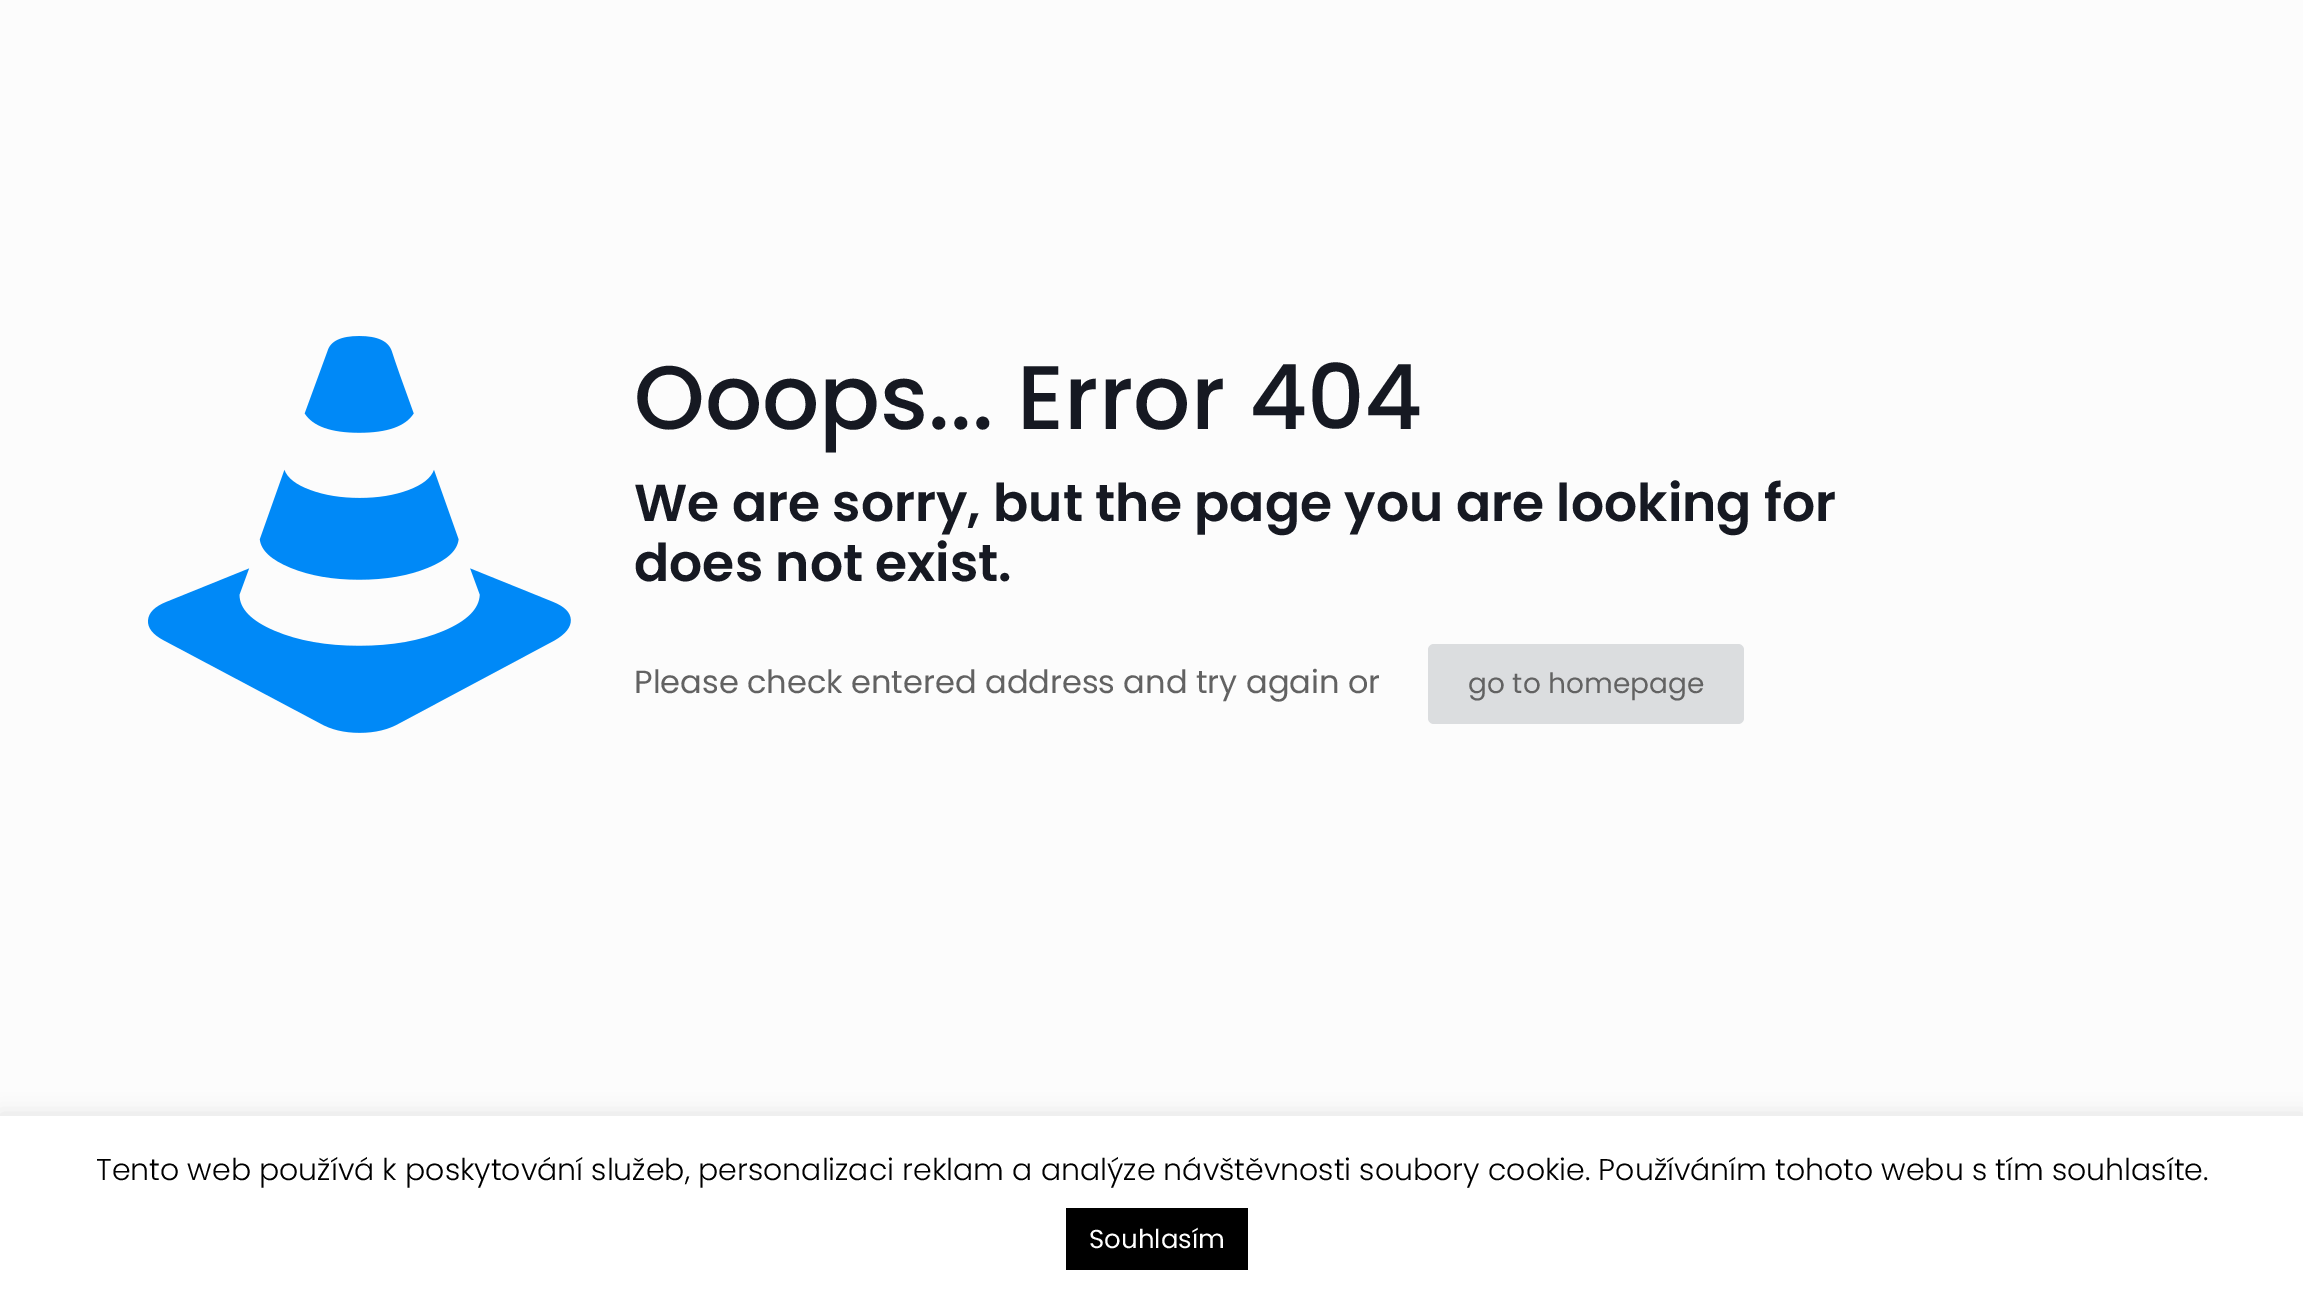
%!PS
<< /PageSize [2303 1294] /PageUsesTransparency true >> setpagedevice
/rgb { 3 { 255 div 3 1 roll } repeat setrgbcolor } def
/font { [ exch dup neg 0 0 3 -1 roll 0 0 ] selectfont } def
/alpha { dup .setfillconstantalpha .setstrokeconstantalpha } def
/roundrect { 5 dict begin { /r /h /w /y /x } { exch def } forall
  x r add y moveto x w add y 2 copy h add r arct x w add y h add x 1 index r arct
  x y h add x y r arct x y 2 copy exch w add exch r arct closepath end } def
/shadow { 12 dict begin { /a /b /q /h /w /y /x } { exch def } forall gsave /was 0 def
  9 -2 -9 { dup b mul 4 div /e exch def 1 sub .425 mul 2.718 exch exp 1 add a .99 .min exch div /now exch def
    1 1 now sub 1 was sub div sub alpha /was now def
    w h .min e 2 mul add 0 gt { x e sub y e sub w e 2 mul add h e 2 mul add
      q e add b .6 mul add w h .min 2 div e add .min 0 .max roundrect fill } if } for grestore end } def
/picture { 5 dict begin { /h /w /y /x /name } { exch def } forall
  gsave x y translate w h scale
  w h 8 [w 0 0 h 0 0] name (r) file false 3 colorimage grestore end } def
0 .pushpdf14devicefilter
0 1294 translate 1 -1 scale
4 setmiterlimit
252 252 252 rgb
0 0 2303 1294 rectfill
(img/1.rgb) 148 336 423 397 picture
219 221 223 rgb
1428 644 316 80 6 roundrect fill
172 171 171 rgb
0 1114 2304 178 0 10 0.3 shadow
255 255 255 rgb
0 1116 2303 178 rectfill
0 0 0 rgb
1066 1208 182 62 rectfill
/Poppins-Medium 90 font
22 25 34 rgb
634 429 moveto (Ooops... Error 404) show
/Poppins-SemiBold 52 font
634 521 moveto (We are sorry, but the page you are looking for) show
634 581 moveto (does not exist.) show
/Poppins-Regular 32 font
98 98 98 rgb
634 693 moveto (Please check entered address and try again or) show
/Poppins-Regular 28 font
1468 693 moveto (go to homepage) show
/Poppins-Light 30 font
0 0 0 rgb
96 1180 moveto (Tento web používá k poskytování služeb, personalizaci reklam a analýze návštěvnosti soubory cookie. Používáním tohoto webu s tím souhlasíte.) show
/Poppins-Regular 26 font
255 255 255 rgb
1089 1248 moveto (Souhlasím) show
.poppdf14devicefilter showpage
